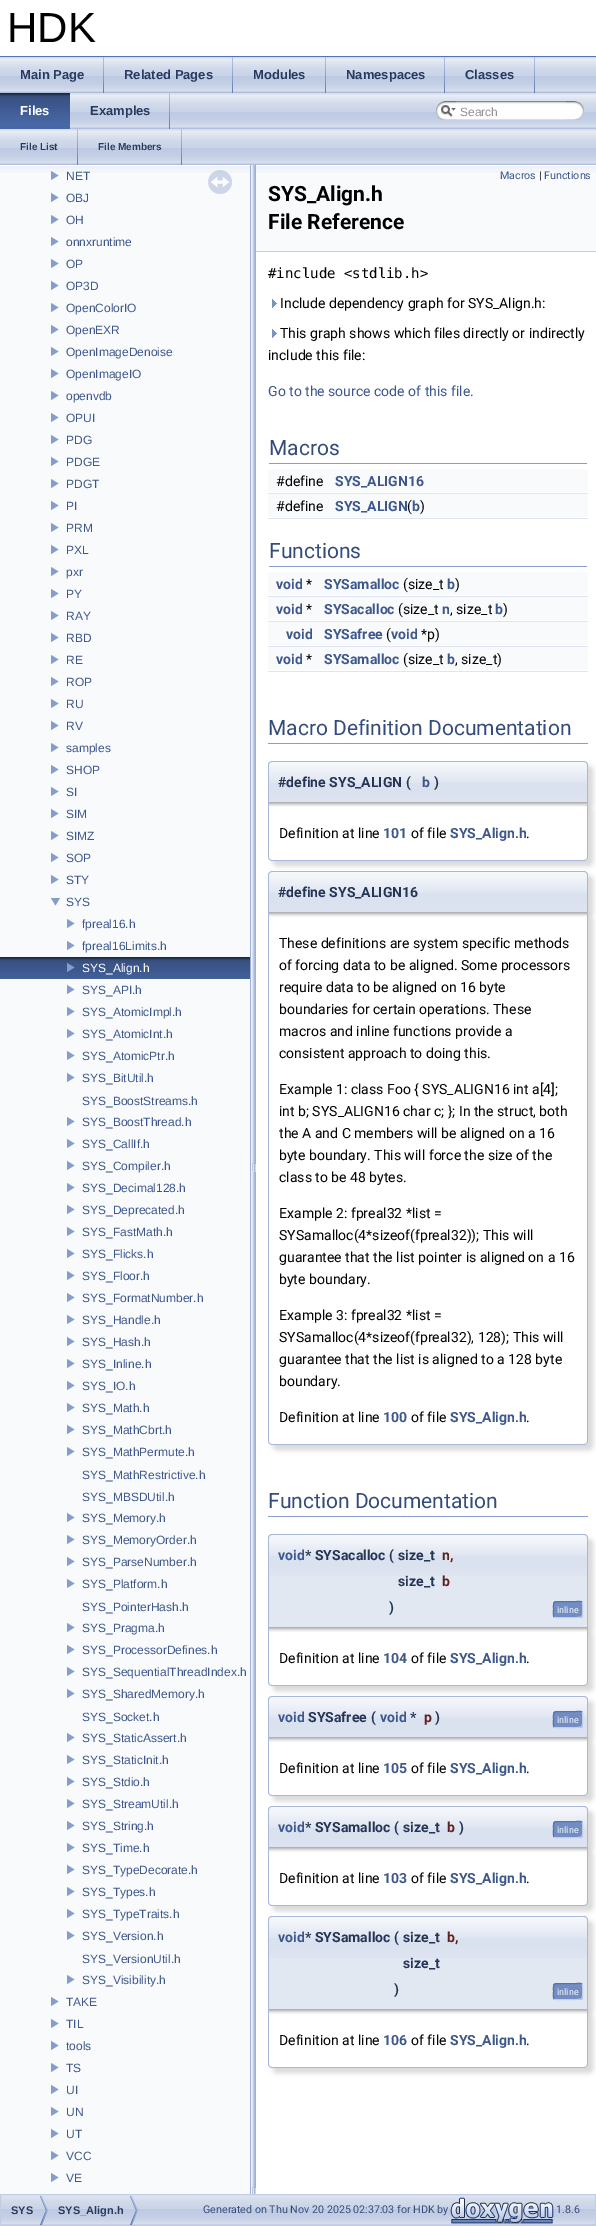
%!PS
<< /PageSize [596 2226] /PageUsesTransparency true >> setpagedevice
/rgb { 3 { 255 div 3 1 roll } repeat setrgbcolor } def
/font { [ exch dup neg 0 0 3 -1 roll 0 0 ] selectfont } def
/alpha { dup .setfillconstantalpha .setstrokeconstantalpha } def
/roundrect { 5 dict begin { /r /h /w /y /x } { exch def } forall
  x r add y moveto x w add y 2 copy h add r arct x w add y h add x 1 index r arct
  x y h add x y r arct x y 2 copy exch w add exch r arct closepath end } def
/shadow { 12 dict begin { /a /b /q /h /w /y /x } { exch def } forall gsave /was 0 def
  9 -2 -9 { dup b mul 4 div /e exch def 1 sub .425 mul 2.718 exch exp 1 add a .99 .min exch div /now exch def
    1 1 now sub 1 was sub div sub alpha /was now def
    w h .min e 2 mul add 0 gt { x e sub y e sub w e 2 mul add h e 2 mul add
      q e add b .6 mul add w h .min 2 div e add .min 0 .max roundrect fill } if } for grestore end } def
/picture { 5 dict begin { /h /w /y /x /name } { exch def } forall
  gsave x y translate w h scale
  w h 8 [w 0 0 h 0 0] name (r) file false 3 colorimage grestore end } def
0 .pushpdf14devicefilter
0 2226 translate 1 -1 scale
4 setmiterlimit
255 255 255 rgb
0 0 596 2226 rectfill
83 115 180 rgb
0 56 596 1 rectfill
(img/1.rgb) 0 57 596 72 picture
(img/2.rgb) 103 57 1 36 picture
(img/2.rgb) 232 57 1 36 picture
(img/2.rgb) 325 57 1 36 picture
(img/2.rgb) 444 57 1 36 picture
(img/2.rgb) 534 57 1 36 picture
(img/3.rgb) 0 93 70 36 picture
(img/2.rgb) 169 93 1 36 picture
(img/4.rgb) 436 101 20 19 picture
(img/5.rgb) 441 105 15 12 picture
(img/6.rgb) 456 101 110 19 picture
(img/7.rgb) 566 101 18 19 picture
(img/8.rgb) 0 129 596 36 picture
(img/2.rgb) 77 129 1 36 picture
(img/2.rgb) 181 129 1 36 picture
249 250 252 rgb
0 173 250 2021 rectfill
(img/9.rgb) 0 165 250 8 picture
(img/10.rgb) 208 170 24 24 picture
(img/11.rgb) 51 171 8 9 picture
(img/12.rgb) 51 193 8 9 picture
(img/12.rgb) 51 215 8 9 picture
(img/12.rgb) 51 237 8 9 picture
(img/12.rgb) 51 259 8 9 picture
(img/12.rgb) 51 281 8 9 picture
(img/12.rgb) 51 303 8 9 picture
(img/12.rgb) 51 325 8 9 picture
(img/12.rgb) 51 347 8 9 picture
(img/12.rgb) 51 369 8 9 picture
(img/12.rgb) 51 391 8 9 picture
(img/12.rgb) 51 413 8 9 picture
(img/12.rgb) 51 435 8 9 picture
(img/12.rgb) 51 457 8 9 picture
(img/12.rgb) 51 479 8 9 picture
(img/12.rgb) 51 501 8 9 picture
(img/12.rgb) 51 523 8 9 picture
(img/12.rgb) 51 545 8 9 picture
(img/12.rgb) 51 567 8 9 picture
(img/12.rgb) 51 589 8 9 picture
(img/12.rgb) 51 611 8 9 picture
(img/12.rgb) 51 633 8 9 picture
(img/12.rgb) 51 655 8 9 picture
(img/12.rgb) 51 677 8 9 picture
(img/12.rgb) 51 699 8 9 picture
(img/12.rgb) 51 721 8 9 picture
(img/12.rgb) 51 743 8 9 picture
(img/12.rgb) 51 765 8 9 picture
(img/12.rgb) 51 787 8 9 picture
(img/12.rgb) 51 809 8 9 picture
(img/12.rgb) 51 831 8 9 picture
(img/12.rgb) 51 853 8 9 picture
(img/12.rgb) 51 875 8 9 picture
(img/13.rgb) 51 898 9 8 picture
(img/12.rgb) 67 919 8 9 picture
(img/12.rgb) 67 941 8 9 picture
(img/14.rgb) 0 957 250 22 picture
(img/15.rgb) 67 963 8 9 picture
(img/12.rgb) 67 985 8 9 picture
(img/12.rgb) 67 1007 8 9 picture
(img/12.rgb) 67 1029 8 9 picture
(img/12.rgb) 67 1051 8 9 picture
(img/12.rgb) 67 1073 8 9 picture
(img/12.rgb) 67 1117 8 9 picture
(img/12.rgb) 67 1139 8 9 picture
(img/12.rgb) 67 1161 8 9 picture
(img/12.rgb) 67 1183 8 9 picture
(img/12.rgb) 67 1205 8 9 picture
(img/12.rgb) 67 1227 8 9 picture
(img/12.rgb) 67 1249 8 9 picture
(img/12.rgb) 67 1271 8 9 picture
(img/12.rgb) 67 1293 8 9 picture
(img/12.rgb) 67 1315 8 9 picture
(img/12.rgb) 67 1337 8 9 picture
(img/12.rgb) 67 1359 8 9 picture
(img/12.rgb) 67 1381 8 9 picture
(img/12.rgb) 67 1403 8 9 picture
(img/12.rgb) 67 1425 8 9 picture
(img/12.rgb) 67 1447 8 9 picture
(img/12.rgb) 67 1513 8 9 picture
(img/12.rgb) 67 1535 8 9 picture
(img/12.rgb) 67 1557 8 9 picture
(img/12.rgb) 67 1579 8 9 picture
(img/12.rgb) 67 1623 8 9 picture
(img/12.rgb) 67 1645 8 9 picture
(img/12.rgb) 67 1667 8 9 picture
(img/12.rgb) 67 1689 8 9 picture
(img/12.rgb) 67 1733 8 9 picture
(img/12.rgb) 67 1755 8 9 picture
(img/12.rgb) 67 1777 8 9 picture
(img/12.rgb) 67 1799 8 9 picture
(img/12.rgb) 67 1821 8 9 picture
(img/12.rgb) 67 1843 8 9 picture
(img/12.rgb) 67 1865 8 9 picture
(img/12.rgb) 67 1887 8 9 picture
(img/12.rgb) 67 1909 8 9 picture
(img/12.rgb) 67 1931 8 9 picture
(img/12.rgb) 67 1975 8 9 picture
(img/12.rgb) 51 1997 8 9 picture
(img/12.rgb) 51 2019 8 9 picture
(img/12.rgb) 51 2041 8 9 picture
(img/12.rgb) 51 2063 8 9 picture
(img/12.rgb) 51 2085 8 9 picture
(img/12.rgb) 51 2107 8 9 picture
(img/12.rgb) 51 2129 8 9 picture
(img/12.rgb) 51 2151 8 9 picture
(img/12.rgb) 51 2173 8 9 picture
(img/16.rgb) 250 165 6 2029 picture
256 173 340 78 rectfill
(img/17.rgb) 256 165 340 8 picture
196 207 229 rgb
256 251 340 1 rectfill
(img/18.rgb) 272 299 5 9 picture
(img/18.rgb) 272 329 5 9 picture
[
  [269 463 318 1 135 158 203]
  [268 469 320 23 249 250 252]
  [268 493 320 1 222 228 240]
  [268 494 320 23 249 250 252]
  [268 518 320 1 222 228 240]
  [269 566 318 1 135 158 203]
  [268 572 320 23 249 250 252]
  [268 596 320 1 222 228 240]
  [268 597 320 23 249 250 252]
  [268 621 320 1 222 228 240]
  [268 622 320 23 249 250 252]
  [268 646 320 1 222 228 240]
  [268 647 320 23 249 250 252]
  [268 671 320 1 222 228 240]
  [268 743 320 1 135 158 203]
] { aload pop rgb rectfill } forall
0 0 0 rgb
273 766 320 41 4 2.5 0.15 shadow
(img/19.rgb) 268 762 320 40 picture
168 184 217 rgb
272 761 moveto 584 761 lineto 586 761 588 763 588 765 curveto 588 802 lineto 268 802 lineto 268 765 lineto 268 763 270 761 272 761 curveto closepath 272 762 moveto 584 762 lineto 586 762 587 763 587 765 curveto 587 802 lineto 269 802 lineto 269 765 lineto 269 763 270 762 272 762 curveto closepath eofill
0 0 0 rgb
273 807 320 59 4 2.5 0.15 shadow
255 255 255 rgb
268 802 moveto 588 802 lineto 588 857 lineto 588 859 586 861 584 861 curveto 272 861 lineto 270 861 268 859 268 857 curveto closepath fill
(img/20.rgb) 269 802 318 5 picture
168 184 217 rgb
268 802 moveto 588 802 lineto 588 857 lineto 588 859 586 861 584 861 curveto 272 861 lineto 270 861 268 859 268 857 curveto closepath 269 802 moveto 587 802 lineto 587 857 lineto 587 859 586 860 584 860 curveto 272 860 lineto 270 860 269 859 269 857 curveto closepath eofill
0 0 0 rgb
273 876 320 41 4 2.5 0.15 shadow
(img/21.rgb) 268 872 320 40 picture
168 184 217 rgb
272 871 moveto 584 871 lineto 586 871 588 873 588 875 curveto 588 912 lineto 268 912 lineto 268 875 lineto 268 873 270 871 272 871 curveto closepath 272 872 moveto 584 872 lineto 586 872 587 873 587 875 curveto 587 912 lineto 269 912 lineto 269 875 lineto 269 873 270 872 272 872 curveto closepath eofill
0 0 0 rgb
273 917 320 533 4 2.5 0.15 shadow
255 255 255 rgb
268 912 moveto 588 912 lineto 588 1441 lineto 588 1443 586 1445 584 1445 curveto 272 1445 lineto 270 1445 268 1443 268 1441 curveto closepath fill
(img/20.rgb) 269 912 318 5 picture
168 184 217 rgb
268 912 moveto 588 912 lineto 588 1441 lineto 588 1443 586 1445 584 1445 curveto 272 1445 lineto 270 1445 268 1443 268 1441 curveto closepath 269 912 moveto 587 912 lineto 587 1441 lineto 587 1443 586 1444 584 1444 curveto 272 1444 lineto 270 1444 269 1443 269 1441 curveto closepath eofill
135 158 203 rgb
268 1516 320 1 rectfill
0 0 0 rgb
273 1539 320 93 4 2.5 0.15 shadow
226 232 242 rgb
272 1534 moveto 584 1534 lineto 586 1534 588 1536 588 1538 curveto 588 1627 lineto 268 1627 lineto 268 1538 lineto 268 1536 270 1534 272 1534 curveto closepath fill
(img/22.rgb) 268 1535 320 41 picture
168 184 217 rgb
272 1534 moveto 584 1534 lineto 586 1534 588 1536 588 1538 curveto 588 1627 lineto 268 1627 lineto 268 1538 lineto 268 1536 270 1534 272 1534 curveto closepath 272 1535 moveto 584 1535 lineto 586 1535 587 1536 587 1538 curveto 587 1627 lineto 269 1627 lineto 269 1538 lineto 269 1536 270 1535 272 1535 curveto closepath eofill
114 141 193 rgb
553 1601 30 17 3 roundrect fill
196 207 229 rgb
582 1602 moveto 583 1603.5 582.5 1608 582.5 1609.5 curveto 582.5 1617 583.5 1617.5 576 1617.5 curveto 560 1617.5 lineto 558.5 1617.5 555.5 1618 554 1617 curveto stroke
83 115 180 rgb
554 1617 moveto 553 1615.5 553.5 1611 553.5 1609.5 curveto 553.5 1602 552.5 1601.5 560 1601.5 curveto 576 1601.5 lineto 577.5 1601.5 580.5 1601 582 1602 curveto stroke
0 0 0 rgb
273 1632 320 59 4 2.5 0.15 shadow
255 255 255 rgb
268 1627 moveto 588 1627 lineto 588 1682 lineto 588 1684 586 1686 584 1686 curveto 272 1686 lineto 270 1686 268 1684 268 1682 curveto closepath fill
(img/20.rgb) 269 1627 318 5 picture
168 184 217 rgb
268 1627 moveto 588 1627 lineto 588 1682 lineto 588 1684 586 1686 584 1686 curveto 272 1686 lineto 270 1686 268 1684 268 1682 curveto closepath 269 1627 moveto 587 1627 lineto 587 1682 lineto 587 1684 586 1685 584 1685 curveto 272 1685 lineto 270 1685 269 1684 269 1682 curveto closepath eofill
0 0 0 rgb
273 1701 320 41 4 2.5 0.15 shadow
(img/21.rgb) 268 1697 320 40 picture
168 184 217 rgb
272 1696 moveto 584 1696 lineto 586 1696 588 1698 588 1700 curveto 588 1737 lineto 268 1737 lineto 268 1700 lineto 268 1698 270 1696 272 1696 curveto closepath 272 1697 moveto 584 1697 lineto 586 1697 587 1698 587 1700 curveto 587 1737 lineto 269 1737 lineto 269 1700 lineto 269 1698 270 1697 272 1697 curveto closepath eofill
114 141 193 rgb
553 1711 30 17 3 roundrect fill
196 207 229 rgb
582 1712 moveto 583 1713.5 582.5 1718 582.5 1719.5 curveto 582.5 1727 583.5 1727.5 576 1727.5 curveto 560 1727.5 lineto 558.5 1727.5 555.5 1728 554 1727 curveto stroke
83 115 180 rgb
554 1727 moveto 553 1725.5 553.5 1721 553.5 1719.5 curveto 553.5 1712 552.5 1711.5 560 1711.5 curveto 576 1711.5 lineto 577.5 1711.5 580.5 1711 582 1712 curveto stroke
0 0 0 rgb
273 1742 320 59 4 2.5 0.15 shadow
255 255 255 rgb
268 1737 moveto 588 1737 lineto 588 1792 lineto 588 1794 586 1796 584 1796 curveto 272 1796 lineto 270 1796 268 1794 268 1792 curveto closepath fill
(img/20.rgb) 269 1737 318 5 picture
168 184 217 rgb
268 1737 moveto 588 1737 lineto 588 1792 lineto 588 1794 586 1796 584 1796 curveto 272 1796 lineto 270 1796 268 1794 268 1792 curveto closepath 269 1737 moveto 587 1737 lineto 587 1792 lineto 587 1794 586 1795 584 1795 curveto 272 1795 lineto 270 1795 269 1794 269 1792 curveto closepath eofill
0 0 0 rgb
273 1811 320 41 4 2.5 0.15 shadow
(img/21.rgb) 268 1807 320 40 picture
168 184 217 rgb
272 1806 moveto 584 1806 lineto 586 1806 588 1808 588 1810 curveto 588 1847 lineto 268 1847 lineto 268 1810 lineto 268 1808 270 1806 272 1806 curveto closepath 272 1807 moveto 584 1807 lineto 586 1807 587 1808 587 1810 curveto 587 1847 lineto 269 1847 lineto 269 1810 lineto 269 1808 270 1807 272 1807 curveto closepath eofill
114 141 193 rgb
553 1821 30 17 3 roundrect fill
196 207 229 rgb
582 1822 moveto 583 1823.5 582.5 1828 582.5 1829.5 curveto 582.5 1837 583.5 1837.5 576 1837.5 curveto 560 1837.5 lineto 558.5 1837.5 555.5 1838 554 1837 curveto stroke
83 115 180 rgb
554 1837 moveto 553 1835.5 553.5 1831 553.5 1829.5 curveto 553.5 1822 552.5 1821.5 560 1821.5 curveto 576 1821.5 lineto 577.5 1821.5 580.5 1821 582 1822 curveto stroke
0 0 0 rgb
273 1852 320 59 4 2.5 0.15 shadow
255 255 255 rgb
268 1847 moveto 588 1847 lineto 588 1902 lineto 588 1904 586 1906 584 1906 curveto 272 1906 lineto 270 1906 268 1904 268 1902 curveto closepath fill
(img/20.rgb) 269 1847 318 5 picture
168 184 217 rgb
268 1847 moveto 588 1847 lineto 588 1902 lineto 588 1904 586 1906 584 1906 curveto 272 1906 lineto 270 1906 268 1904 268 1902 curveto closepath 269 1847 moveto 587 1847 lineto 587 1902 lineto 587 1904 586 1905 584 1905 curveto 272 1905 lineto 270 1905 269 1904 269 1902 curveto closepath eofill
0 0 0 rgb
273 1921 320 93 4 2.5 0.15 shadow
226 232 242 rgb
272 1916 moveto 584 1916 lineto 586 1916 588 1918 588 1920 curveto 588 2009 lineto 268 2009 lineto 268 1920 lineto 268 1918 270 1916 272 1916 curveto closepath fill
(img/23.rgb) 268 1917 320 41 picture
168 184 217 rgb
272 1916 moveto 584 1916 lineto 586 1916 588 1918 588 1920 curveto 588 2009 lineto 268 2009 lineto 268 1920 lineto 268 1918 270 1916 272 1916 curveto closepath 272 1917 moveto 584 1917 lineto 586 1917 587 1918 587 1920 curveto 587 2009 lineto 269 2009 lineto 269 1920 lineto 269 1918 270 1917 272 1917 curveto closepath eofill
114 141 193 rgb
553 1983 30 17 3 roundrect fill
196 207 229 rgb
582 1984 moveto 583 1985.5 582.5 1990 582.5 1991.5 curveto 582.5 1999 583.5 1999.5 576 1999.5 curveto 560 1999.5 lineto 558.5 1999.5 555.5 2000 554 1999 curveto stroke
83 115 180 rgb
554 1999 moveto 553 1997.5 553.5 1993 553.5 1991.5 curveto 553.5 1984 552.5 1983.5 560 1983.5 curveto 576 1983.5 lineto 577.5 1983.5 580.5 1983 582 1984 curveto stroke
0 0 0 rgb
273 2014 320 59 4 2.5 0.15 shadow
255 255 255 rgb
268 2009 moveto 588 2009 lineto 588 2064 lineto 588 2066 586 2068 584 2068 curveto 272 2068 lineto 270 2068 268 2066 268 2064 curveto closepath fill
(img/20.rgb) 269 2009 318 5 picture
168 184 217 rgb
268 2009 moveto 588 2009 lineto 588 2064 lineto 588 2066 586 2068 584 2068 curveto 272 2068 lineto 270 2068 268 2066 268 2064 curveto closepath 269 2009 moveto 587 2009 lineto 587 2064 lineto 587 2066 586 2067 584 2067 curveto 272 2067 lineto 270 2067 269 2066 269 2064 curveto closepath eofill
(img/24.rgb) 1 2195 594 30 picture
194 205 228 rgb
0.5 2194.5 595 31 rectstroke
(img/25.rgb) 40 2196 8 29 picture
(img/25.rgb) 130 2196 8 29 picture
(img/26.rgb) 450 2197 104 27 picture
/LiberationSans-Regular 42 font
0 0 0 rgb
7 42 moveto (HDK) show
/LiberationSans-Bold 13 font
40 58 93 rgb
[
  [(Main Page) 20 79]
  [(Related Pages) 124 79]
  [(Modules) 253 79]
  [(Namespaces) 346 79]
  [(Classes) 465 79]
] { aload pop moveto show } forall
255 255 255 rgb
20 115 moveto (Files) show
40 58 93 rgb
90 115 moveto (Examples) show
/LiberationSans-Regular 12 font
144 144 144 rgb
460 116 moveto (Search) show
/LiberationSans-Bold 10 font
40 58 93 rgb
20 150 moveto (File List) show
98 150 moveto (File Members) show
/LiberationSans-Regular 12 font
61 87 140 rgb
[
  [(NET) 66 180]
  [(OBJ) 66 202]
  [(OH) 66 224]
  [(onnxruntime) 66 246]
  [(OP) 66 268]
  [(OP3D) 66 290]
  [(OpenColorIO) 66 312]
  [(OpenEXR) 66 334]
  [(OpenImageDenoise) 66 356]
  [(OpenImageIO) 66 378]
  [(openvdb) 66 400]
  [(OPUI) 66 422]
  [(PDG) 66 444]
  [(PDGE) 66 466]
  [(PDGT) 66 488]
  [(PI) 66 510]
  [(PRM) 66 532]
  [(PXL) 66 554]
  [(pxr) 66 576]
  [(PY) 66 598]
  [(RAY) 66 620]
  [(RBD) 66 642]
  [(RE) 66 664]
  [(ROP) 66 686]
  [(RU) 66 708]
  [(RV) 66 730]
  [(samples) 66 752]
  [(SHOP) 66 774]
  [(SI) 66 796]
  [(SIM) 66 818]
  [(SIMZ) 66 840]
  [(SOP) 66 862]
  [(STY) 66 884]
  [(SYS) 66 906]
  [(fpreal16.h) 82 928]
  [(fpreal16Limits.h) 82 950]
] { aload pop moveto show } forall
255 255 255 rgb
82 972 moveto (SYS_Align.h) show
61 87 140 rgb
[
  [(SYS_API.h) 82 994]
  [(SYS_AtomicImpl.h) 82 1016]
  [(SYS_AtomicInt.h) 82 1038]
  [(SYS_AtomicPtr.h) 82 1060]
  [(SYS_BitUtil.h) 82 1082]
  [(SYS_BoostStreams.h) 82 1105]
  [(SYS_BoostThread.h) 82 1126]
  [(SYS_CallIf.h) 82 1148]
  [(SYS_Compiler.h) 82 1170]
  [(SYS_Decimal128.h) 82 1192]
  [(SYS_Deprecated.h) 82 1214]
  [(SYS_FastMath.h) 82 1236]
  [(SYS_Flicks.h) 82 1258]
  [(SYS_Floor.h) 82 1280]
  [(SYS_FormatNumber.h) 82 1302]
  [(SYS_Handle.h) 82 1324]
  [(SYS_Hash.h) 82 1346]
  [(SYS_Inline.h) 82 1368]
  [(SYS_IO.h) 82 1390]
  [(SYS_Math.h) 82 1412]
  [(SYS_MathCbrt.h) 82 1434]
  [(SYS_MathPermute.h) 82 1456]
  [(SYS_MathRestrictive.h) 82 1479]
  [(SYS_MBSDUtil.h) 82 1501]
  [(SYS_Memory.h) 82 1522]
  [(SYS_MemoryOrder.h) 82 1544]
  [(SYS_ParseNumber.h) 82 1566]
  [(SYS_Platform.h) 82 1588]
  [(SYS_PointerHash.h) 82 1611]
  [(SYS_Pragma.h) 82 1632]
  [(SYS_ProcessorDefines.h) 82 1654]
  [(SYS_SequentialThreadIndex.h) 82 1676]
  [(SYS_SharedMemory.h) 82 1698]
  [(SYS_Socket.h) 82 1721]
  [(SYS_StaticAssert.h) 82 1742]
  [(SYS_StaticInit.h) 82 1764]
  [(SYS_Stdio.h) 82 1786]
  [(SYS_StreamUtil.h) 82 1808]
  [(SYS_String.h) 82 1830]
  [(SYS_Time.h) 82 1852]
  [(SYS_TypeDecorate.h) 82 1874]
  [(SYS_Types.h) 82 1896]
  [(SYS_TypeTraits.h) 82 1918]
  [(SYS_Version.h) 82 1940]
  [(SYS_VersionUtil.h) 82 1963]
  [(SYS_Visibility.h) 82 1984]
  [(TAKE) 66 2006]
  [(TIL) 66 2028]
  [(tools) 66 2050]
  [(TS) 66 2072]
  [(UI) 66 2094]
  [(UN) 66 2116]
  [(UT) 66 2138]
  [(VCC) 66 2160]
  [(VE) 66 2182]
] { aload pop moveto show } forall
/Roboto-Regular 10.7 font
500 179 moveto (Macros) show
0 0 0 rgb
539 179 moveto (|) show
61 87 140 rgb
544 179 moveto (Functions) show
/Roboto-Bold 21 font
0 0 0 rgb
268 201 moveto (SYS_Align.h) show
268 229 moveto (File Reference) show
/DejaVuSansMono-Regular 14 font
268 278 moveto (#include <stdlib.h>) show
/Roboto-Regular 14 font
[
  [(Include dependency graph for SYS_Align.h:) 280 308]
  [(This graph shows which files directly or indirectly) 280 338]
  [(include this file:) 268 360]
] { aload pop moveto show } forall
61 87 140 rgb
268 396 moveto (Go to the source code of this file.) show
/Roboto-Regular 21 font
53 76 123 rgb
269 455 moveto (Macros) show
/Roboto-Regular 14 font
0 0 0 rgb
276 486 moveto (#define) show
/Roboto-Bold 14 font
61 87 140 rgb
335 486 moveto (SYS_ALIGN16) show
/Roboto-Regular 14 font
0 0 0 rgb
276 511 moveto (#define) show
/Roboto-Bold 14 font
61 87 140 rgb
335 511 moveto (SYS_ALIGN) show
/Roboto-Regular 14 font
0 0 0 rgb
407 511 moveto (\() show
/Roboto-Bold 14 font
61 87 140 rgb
412 511 moveto (b) show
/Roboto-Regular 14 font
0 0 0 rgb
420 511 moveto (\)) show
/Roboto-Regular 21 font
53 76 123 rgb
269 558 moveto (Functions) show
/Roboto-Bold 14 font
61 87 140 rgb
276 589 moveto (void) show
/Roboto-Regular 14 font
0 0 0 rgb
306 589 moveto (*) show
/Roboto-Bold 14 font
61 87 140 rgb
324 589 moveto (SYSamalloc) show
/Roboto-Regular 14 font
0 0 0 rgb
403 589 moveto (\(size_t) show
/Roboto-Bold 14 font
61 87 140 rgb
447 589 moveto (b) show
/Roboto-Regular 14 font
0 0 0 rgb
455 589 moveto (\)) show
/Roboto-Bold 14 font
61 87 140 rgb
276 614 moveto (void) show
/Roboto-Regular 14 font
0 0 0 rgb
306 614 moveto (*) show
/Roboto-Bold 14 font
61 87 140 rgb
324 614 moveto (SYSacalloc) show
/Roboto-Regular 14 font
0 0 0 rgb
398 614 moveto (\(size_t) show
/Roboto-Bold 14 font
61 87 140 rgb
442 614 moveto (n) show
/Roboto-Regular 14 font
0 0 0 rgb
450 614 moveto (, size_t) show
/Roboto-Bold 14 font
61 87 140 rgb
495 614 moveto (b) show
/Roboto-Regular 14 font
0 0 0 rgb
503 614 moveto (\)) show
/Roboto-Bold 14 font
61 87 140 rgb
286 639 moveto (void) show
324 639 moveto (SYSafree) show
/Roboto-Regular 14 font
0 0 0 rgb
386 639 moveto (\() show
/Roboto-Bold 14 font
61 87 140 rgb
391 639 moveto (void) show
/Roboto-Regular 14 font
0 0 0 rgb
421 639 moveto (*p\)) show
/Roboto-Bold 14 font
61 87 140 rgb
276 664 moveto (void) show
/Roboto-Regular 14 font
0 0 0 rgb
306 664 moveto (*) show
/Roboto-Bold 14 font
61 87 140 rgb
324 664 moveto (SYSamalloc) show
/Roboto-Regular 14 font
0 0 0 rgb
403 664 moveto (\(size_t) show
/Roboto-Bold 14 font
61 87 140 rgb
447 664 moveto (b) show
/Roboto-Regular 14 font
0 0 0 rgb
455 664 moveto (, size_t\)) show
/Roboto-Regular 21 font
53 76 123 rgb
268 735 moveto (Macro Definition Documentation) show
/Roboto-Bold 14 font
37 53 85 rgb
278 787 moveto (#define SYS_ALIGN) show
406 787 moveto (\() show
61 87 140 rgb
422 787 moveto (b) show
37 53 85 rgb
434 787 moveto (\)) show
/Roboto-Regular 14 font
0 0 0 rgb
279 838 moveto (Definition at line) show
/Roboto-Bold 14 font
61 87 140 rgb
383 838 moveto (101) show
/Roboto-Regular 14 font
0 0 0 rgb
411 838 moveto (of file) show
/Roboto-Bold 14 font
61 87 140 rgb
450 838 moveto (SYS_Align.h) show
/Roboto-Regular 14 font
0 0 0 rgb
526 838 moveto (.) show
/Roboto-Bold 14 font
37 53 85 rgb
278 897 moveto (#define SYS_ALIGN16) show
/Roboto-Regular 14 font
0 0 0 rgb
[
  [(These definitions are system specific methods) 279 948]
  [(of forcing data to be aligned. Some processors) 279 970]
  [(require data to be aligned on 16 byte) 279 992]
  [(boundaries for certain operations. These) 279 1014]
  [(macros and inline functions provide a) 279 1036]
  [(consistent approach to doing this.) 279 1058]
  [(Example 1: class Foo { SYS_ALIGN16 int a[4];) 279 1094]
  [(int b; SYS_ALIGN16 char c; }; In the struct, both) 279 1116]
  [(the A and C members will be aligned on a 16) 279 1138]
  [(byte boundary. This will force the size of the) 279 1160]
  [(class to be 48 bytes.) 279 1182]
  [(Example 2: fpreal32 *list =) 279 1218]
  [(SYSamalloc\(4*sizeof\(fpreal32\)\); This will) 279 1240]
  [(guarantee that the list pointer is aligned on a 16) 279 1262]
  [(byte boundary.) 279 1284]
  [(Example 3: fpreal32 *list =) 279 1320]
  [(SYSamalloc\(4*sizeof\(fpreal32\), 128\); This will) 279 1342]
  [(guarantee that the list is aligned to a 128 byte) 279 1364]
  [(boundary.) 279 1386]
  [(Definition at line) 279 1422]
] { aload pop moveto show } forall
/Roboto-Bold 14 font
61 87 140 rgb
383 1422 moveto (100) show
/Roboto-Regular 14 font
0 0 0 rgb
411 1422 moveto (of file) show
/Roboto-Bold 14 font
61 87 140 rgb
450 1422 moveto (SYS_Align.h) show
/Roboto-Regular 14 font
0 0 0 rgb
526 1422 moveto (.) show
/Roboto-Regular 21 font
53 76 123 rgb
268 1508 moveto (Function Documentation) show
/Roboto-Bold 14 font
61 87 140 rgb
278 1560 moveto (void) show
37 53 85 rgb
[
  [(* SYSacalloc) 305 1560]
  [(\() 389 1560]
  [(size_t) 398 1560]
] { aload pop moveto show } forall
96 32 32 rgb
442 1560 moveto (n,) show
37 53 85 rgb
398 1586 moveto (size_t) show
96 32 32 rgb
442 1586 moveto (b) show
37 53 85 rgb
389 1612 moveto (\)) show
/Roboto-Regular 9 font
255 255 255 rgb
557 1613 moveto (inline) show
/Roboto-Regular 14 font
0 0 0 rgb
279 1663 moveto (Definition at line) show
/Roboto-Bold 14 font
61 87 140 rgb
383 1663 moveto (104) show
/Roboto-Regular 14 font
0 0 0 rgb
411 1663 moveto (of file) show
/Roboto-Bold 14 font
61 87 140 rgb
450 1663 moveto (SYS_Align.h) show
/Roboto-Regular 14 font
0 0 0 rgb
526 1663 moveto (.) show
/Roboto-Bold 14 font
61 87 140 rgb
278 1722 moveto (void) show
37 53 85 rgb
308 1722 moveto (SYSafree) show
371 1722 moveto (\() show
61 87 140 rgb
380 1722 moveto (void) show
37 53 85 rgb
410 1722 moveto (*) show
96 32 32 rgb
424 1722 moveto (p) show
37 53 85 rgb
435 1722 moveto (\)) show
/Roboto-Regular 9 font
255 255 255 rgb
557 1723 moveto (inline) show
/Roboto-Regular 14 font
0 0 0 rgb
279 1773 moveto (Definition at line) show
/Roboto-Bold 14 font
61 87 140 rgb
383 1773 moveto (105) show
/Roboto-Regular 14 font
0 0 0 rgb
411 1773 moveto (of file) show
/Roboto-Bold 14 font
61 87 140 rgb
450 1773 moveto (SYS_Align.h) show
/Roboto-Regular 14 font
0 0 0 rgb
526 1773 moveto (.) show
/Roboto-Bold 14 font
61 87 140 rgb
278 1832 moveto (void) show
37 53 85 rgb
[
  [(* SYSamalloc) 305 1832]
  [(\() 394 1832]
  [(size_t) 403 1832]
] { aload pop moveto show } forall
96 32 32 rgb
447 1832 moveto (b) show
37 53 85 rgb
459 1832 moveto (\)) show
/Roboto-Regular 9 font
255 255 255 rgb
557 1833 moveto (inline) show
/Roboto-Regular 14 font
0 0 0 rgb
279 1883 moveto (Definition at line) show
/Roboto-Bold 14 font
61 87 140 rgb
383 1883 moveto (103) show
/Roboto-Regular 14 font
0 0 0 rgb
411 1883 moveto (of file) show
/Roboto-Bold 14 font
61 87 140 rgb
450 1883 moveto (SYS_Align.h) show
/Roboto-Regular 14 font
0 0 0 rgb
526 1883 moveto (.) show
/Roboto-Bold 14 font
61 87 140 rgb
278 1942 moveto (void) show
37 53 85 rgb
[
  [(* SYSamalloc) 305 1942]
  [(\() 394 1942]
  [(size_t) 403 1942]
] { aload pop moveto show } forall
96 32 32 rgb
447 1942 moveto (b,) show
37 53 85 rgb
403 1968 moveto (size_t) show
394 1994 moveto (\)) show
/Roboto-Regular 9 font
255 255 255 rgb
557 1995 moveto (inline) show
/Roboto-Regular 14 font
0 0 0 rgb
279 2045 moveto (Definition at line) show
/Roboto-Bold 14 font
61 87 140 rgb
383 2045 moveto (106) show
/Roboto-Regular 14 font
0 0 0 rgb
411 2045 moveto (of file) show
/Roboto-Bold 14 font
61 87 140 rgb
450 2045 moveto (SYS_Align.h) show
/Roboto-Regular 14 font
0 0 0 rgb
526 2045 moveto (.) show
/LiberationSans-Bold 11 font
40 58 93 rgb
11 2214 moveto (SYS) show
58 2214 moveto (SYS_Align.h) show
/Roboto-Regular 10.7 font
53 76 123 rgb
203 2213 moveto (Generated on Thu Nov 20 2025 02:37:03 for HDK by) show
556 2213 moveto (1.8.6) show
.poppdf14devicefilter showpage
